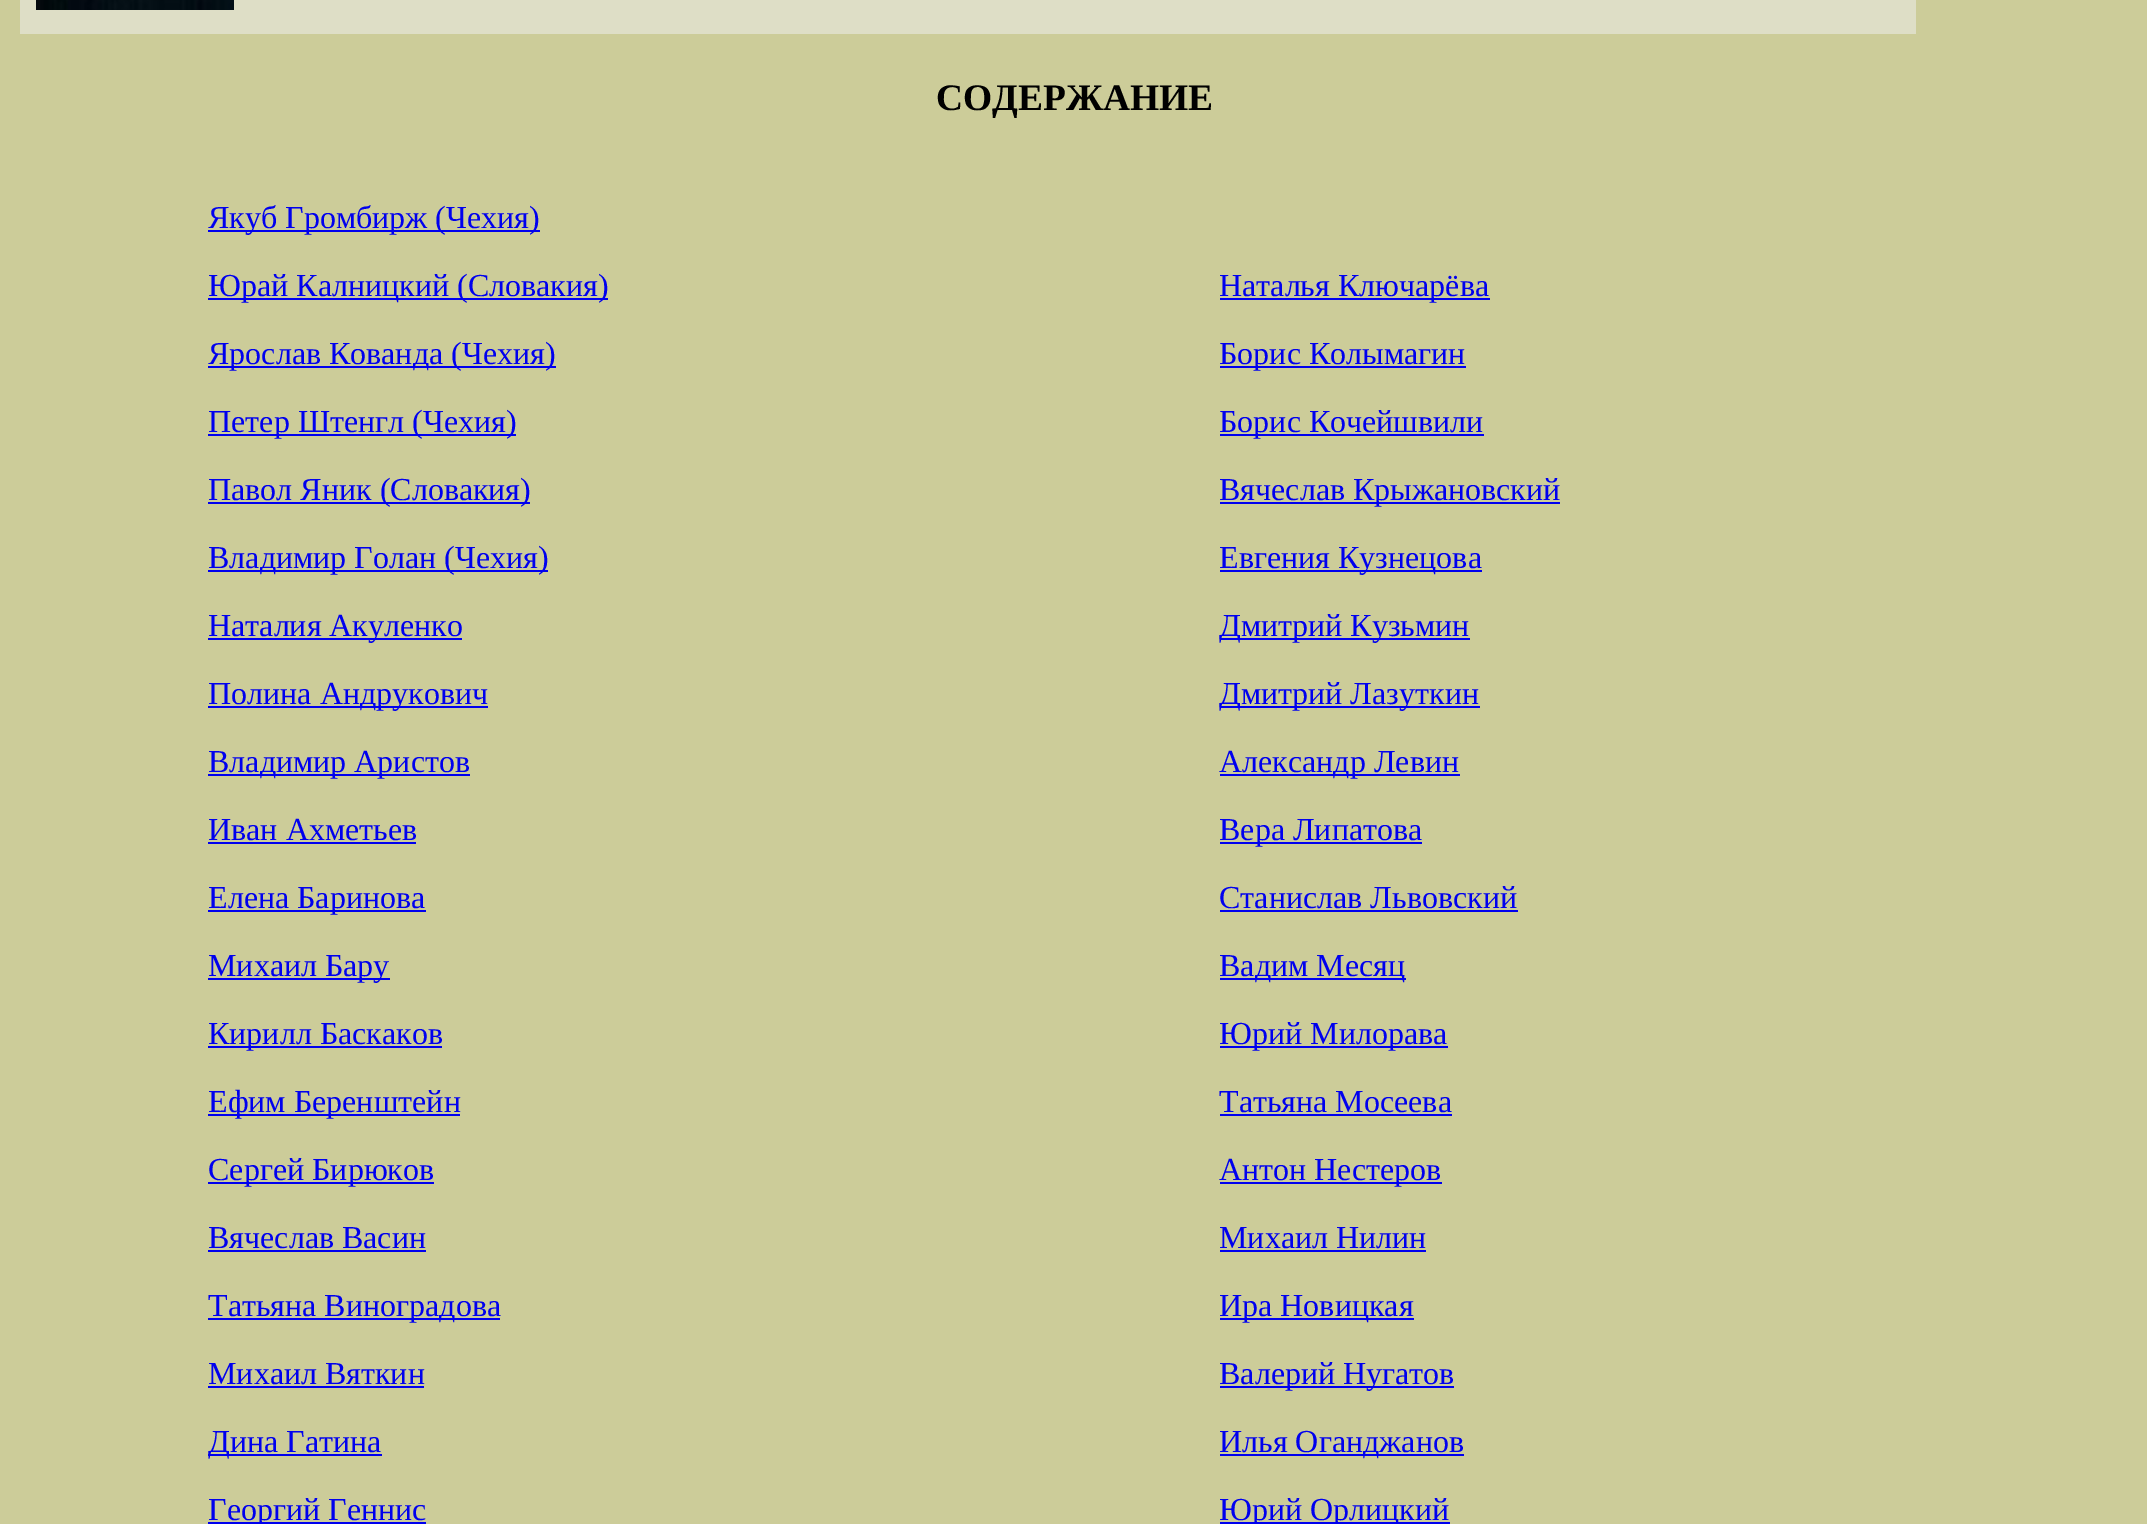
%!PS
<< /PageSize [2147 1524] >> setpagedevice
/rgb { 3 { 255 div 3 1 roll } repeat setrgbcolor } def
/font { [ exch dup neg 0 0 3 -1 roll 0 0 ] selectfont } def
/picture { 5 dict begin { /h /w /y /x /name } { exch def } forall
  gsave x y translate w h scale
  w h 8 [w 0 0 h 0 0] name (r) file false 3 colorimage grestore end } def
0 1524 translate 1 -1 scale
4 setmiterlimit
204 204 153 rgb
0 0 2147 1524 rectfill
222 222 198 rgb
20 0 1896 34 rectfill
(img/1.rgb) 36 0 198 10 picture
[
  [208 230 332 2 0 0 238]
  [208 298 400 2 0 0 238]
  [208 366 348 2 0 0 238]
  [208 434 308 2 0 0 238]
  [208 502 322 2 0 0 238]
  [208 570 340 2 0 0 238]
  [208 638 254 2 0 0 238]
  [208 706 280 2 0 0 238]
  [208 774 262 2 0 0 238]
  [208 842 208 2 0 0 238]
  [208 910 218 2 0 0 238]
  [208 978 182 2 0 0 238]
  [208 1046 234 2 0 0 238]
  [208 1114 252 2 0 0 238]
  [208 1182 226 2 0 0 238]
  [208 1250 218 2 0 0 238]
  [208 1318 292 2 0 0 238]
  [208 1386 216 2 0 0 238]
  [208 1454 174 2 0 0 238]
  [208 1522 218 2 0 0 238]
  [1220 298 270 2 0 0 238]
  [1220 366 246 2 0 0 238]
  [1220 434 264 2 0 0 238]
  [1220 502 340 2 0 0 238]
  [1220 570 262 2 0 0 238]
  [1220 638 250 2 0 0 238]
  [1220 706 260 2 0 0 238]
  [1220 774 240 2 0 0 238]
  [1220 842 202 2 0 0 238]
  [1220 910 298 2 0 0 238]
  [1220 978 186 2 0 0 238]
  [1220 1046 228 2 0 0 238]
  [1220 1114 232 2 0 0 238]
  [1220 1182 222 2 0 0 238]
  [1220 1250 206 2 0 0 238]
  [1220 1318 194 2 0 0 238]
  [1220 1386 234 2 0 0 238]
  [1220 1454 244 2 0 0 238]
  [1220 1522 230 2 0 0 238]
] { aload pop rgb rectfill } forall
/LiberationSerif-Bold 37.5 font
0 0 0 rgb
936 110 moveto (СОДЕРЖАНИЕ) show
/LiberationSerif-Regular 32 font
0 0 238 rgb
[
  [(Якуб Громбирж \(Чехия\)) 208 228]
  [(Юрай Калницкий \(Словакия\)) 208 296]
  [(Ярослав Кованда \(Чехия\)) 208 364]
  [(Петер Штенгл \(Чехия\)) 208 432]
  [(Павол Яник \(Словакия\)) 208 500]
  [(Владимир Голан \(Чехия\)) 208 568]
  [(Наталия Акуленко) 208 636]
  [(Полина Андрукович) 208 704]
  [(Владимир Аристов) 208 772]
  [(Иван Ахметьев) 208 840]
  [(Елена Баринова) 208 908]
  [(Михаил Бару) 208 976]
  [(Кирилл Баскаков) 208 1044]
  [(Ефим Беренштейн) 208 1112]
  [(Сергей Бирюков) 208 1180]
  [(Вячеслав Васин) 208 1248]
  [(Татьяна Виноградова) 208 1316]
  [(Михаил Вяткин) 208 1384]
  [(Дина Гатина) 208 1452]
  [(Георгий Геннис) 208 1520]
  [(Наталья Ключарёва) 1219 296]
  [(Борис Колымагин) 1219 364]
  [(Борис Кочейшвили) 1219 432]
  [(Вячеслав Крыжановский) 1219 500]
  [(Евгения Кузнецова) 1219 568]
  [(Дмитрий Кузьмин) 1219 636]
  [(Дмитрий Лазуткин) 1219 704]
  [(Александр Левин) 1219 772]
  [(Вера Липатова) 1219 840]
  [(Станислав Львовский) 1219 908]
  [(Вадим Месяц) 1219 976]
  [(Юрий Милорава) 1219 1044]
  [(Татьяна Мосеева) 1219 1112]
  [(Антон Нестеров) 1219 1180]
  [(Михаил Нилин) 1219 1248]
  [(Ира Новицкая) 1219 1316]
  [(Валерий Нугатов) 1219 1384]
  [(Илья Оганджанов) 1219 1452]
  [(Юрий Орлицкий) 1219 1520]
] { aload pop moveto show } forall
showpage
